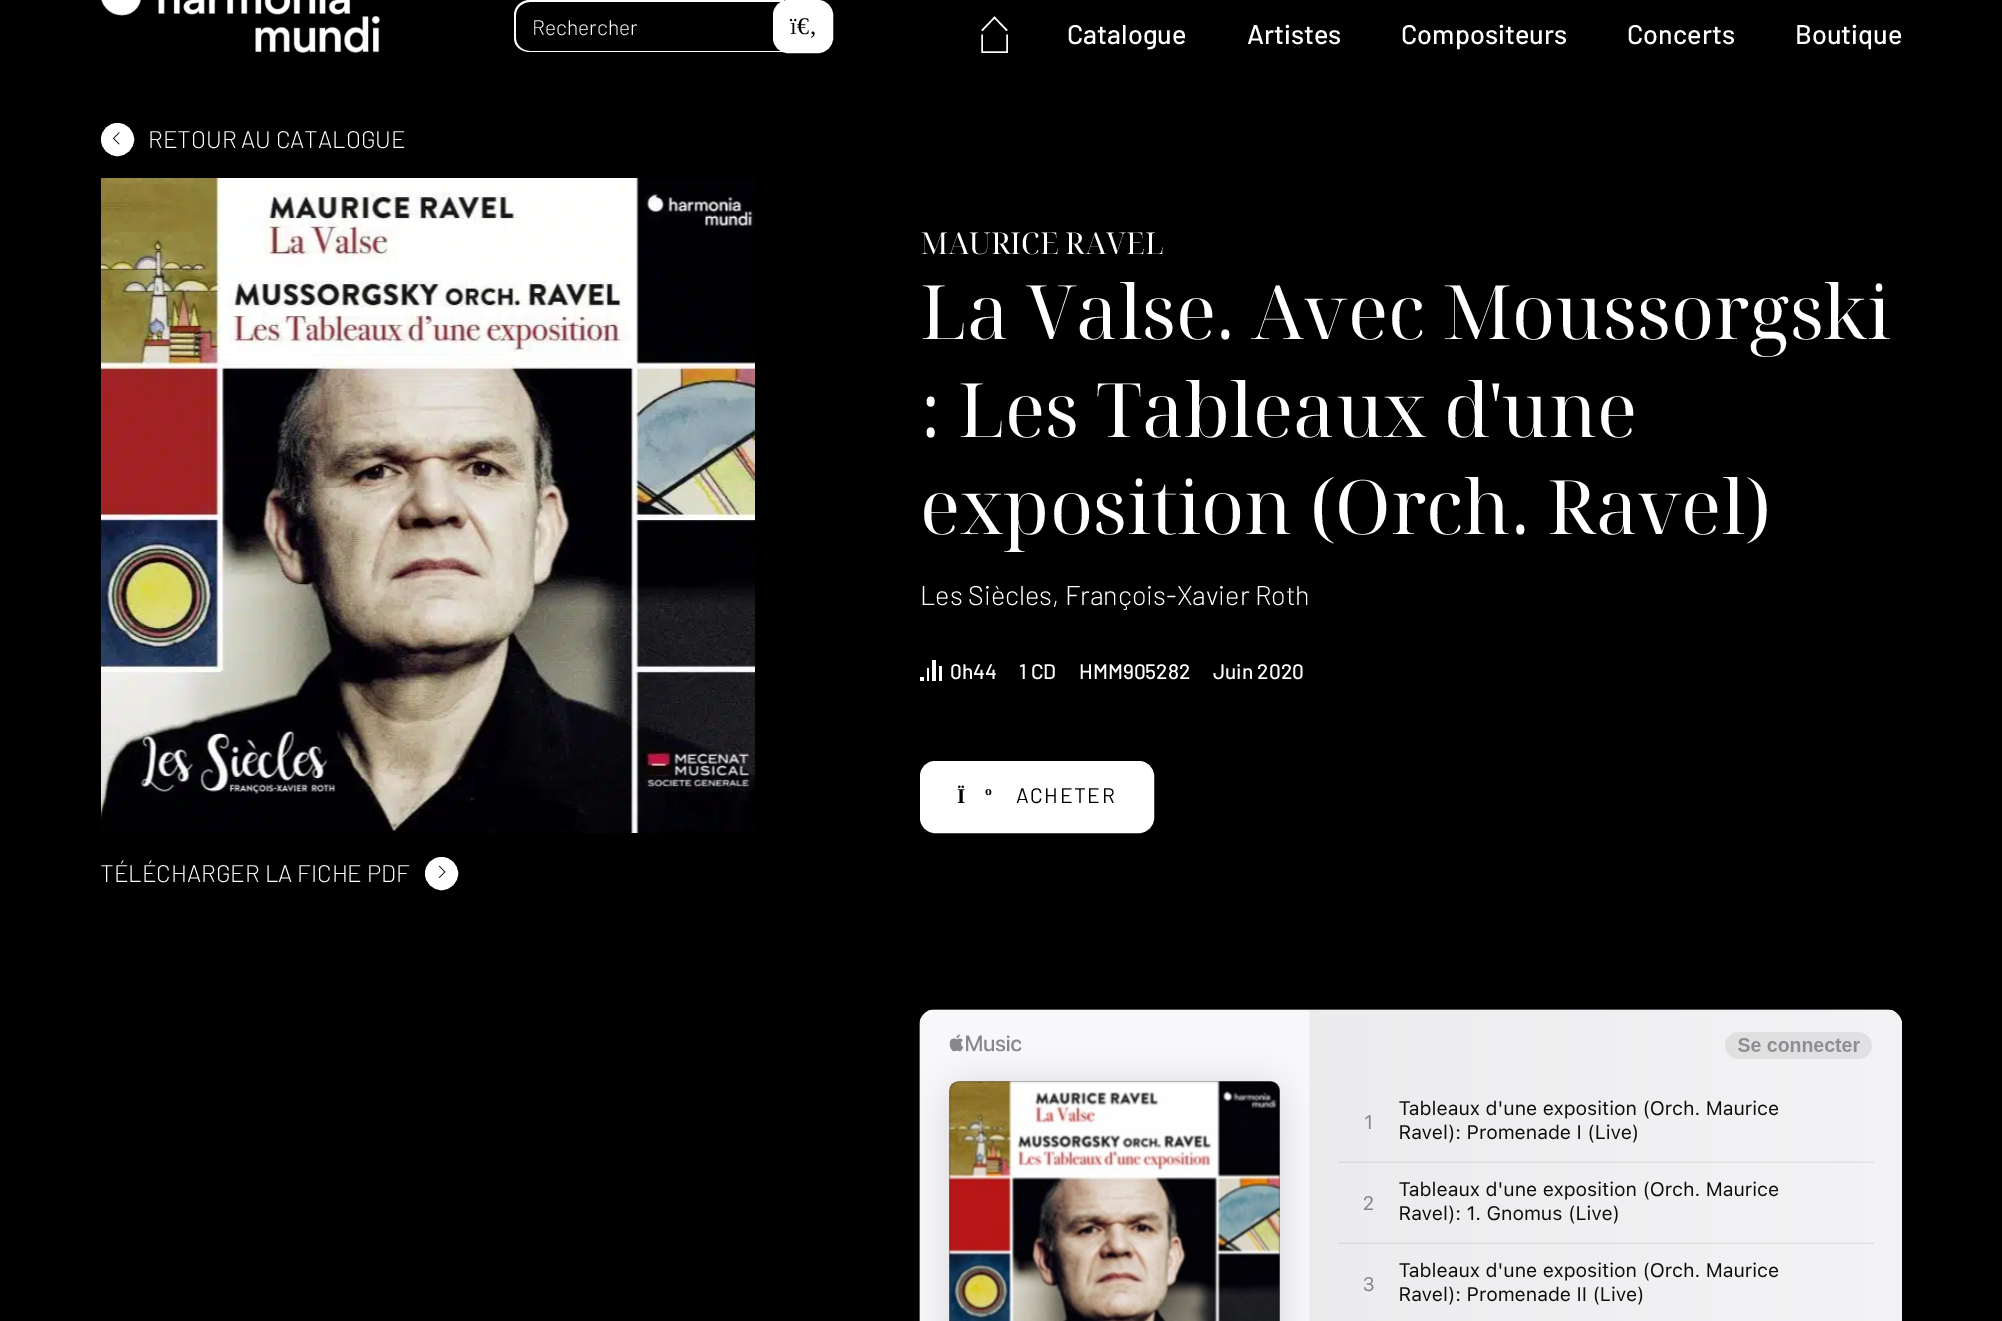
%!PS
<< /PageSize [2002 1321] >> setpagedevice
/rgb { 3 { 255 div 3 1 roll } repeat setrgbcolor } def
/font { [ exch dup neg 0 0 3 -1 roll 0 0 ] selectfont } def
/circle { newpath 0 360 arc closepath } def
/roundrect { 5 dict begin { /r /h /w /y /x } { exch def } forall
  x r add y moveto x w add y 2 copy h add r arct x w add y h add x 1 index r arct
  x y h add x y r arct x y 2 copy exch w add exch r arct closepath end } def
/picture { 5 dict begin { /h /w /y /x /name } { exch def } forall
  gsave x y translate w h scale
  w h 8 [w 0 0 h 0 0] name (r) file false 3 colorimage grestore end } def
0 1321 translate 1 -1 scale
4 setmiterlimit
0 0 0 rgb
0 0 2002 1321 rectfill
(img/1.rgb) 101 0 279 53 picture
255 255 255 rgb
530 0 moveto 784 0 lineto 784 52 lineto 530 52 lineto 521 52 514 46 514 38 curveto 514 15 lineto 514 7 521 0 530 0 curveto closepath 530 2 moveto 784 2 lineto 784 51 lineto 530 51 lineto 522 51 516 45 516 38 curveto 516 15 lineto 516 8 522 2 530 2 curveto closepath eofill
774 1 58 51 14 roundrect gsave fill grestore
2 setlinewidth
stroke
1.5 setlinewidth
982 30.5 moveto 994.5 17.5 lineto 1007 30.5 lineto 982 34.5 moveto 982 52 lineto 1007 52 lineto 1007 34.5 lineto stroke
117.5 139.5 15.5 circle gsave fill grestore
2 setlinewidth
stroke
(img/2.rgb) 113 132 7 13 picture
[
  [927 668 2 13 255 255 255]
  [939 666 3 15 255 255 255]
  [932 660 4 21 255 255 255]
  [920 677 4 4 255 255 255]
] { aload pop rgb rectfill } forall
921 762 232 70 14 roundrect gsave fill grestore
stroke
(img/3.rgb) 919 1009 983 312 picture
(img/4.rgb) 101 178 654 655 picture
441.5 873.5 15.5 circle gsave fill grestore
stroke
(img/5.rgb) 438 865 8 13 picture
/Barlow-Light 21 font
532 35 moveto (Rechercher) show
/LiberationSerif-Regular 24 font
0 0 0 rgb
790 34 moveto (ï€‚) show
/Barlow-Medium 27 font
255 255 255 rgb
[
  [(Catalogue) 1067 44]
  [(Artistes) 1247 44]
  [(Compositeurs) 1401 44]
  [(Concerts) 1627 44]
  [(Boutique) 1795 44]
] { aload pop moveto show } forall
/Barlow-Light 24 font
148 148 moveto (RETOUR AU CATALOGUE) show
/NotoSerifDisplay-Regular 30 font
920 254 moveto (MAURICE RAVEL) show
/NotoSerifDisplay-Regular 75 font
[
  [(La Valse. Avec Moussorgski) 920 339]
  [(: Les Tableaux d'une) 920 437]
  [(exposition \(Orch. Ravel\)) 920 534]
] { aload pop moveto show } forall
/Barlow-Light 27 font
920 605 moveto (Les Siècles, François-Xavier Roth) show
/Barlow-Medium 21 font
[
  [(0h44) 950 679]
  [(1 CD) 1019 679]
  [(HMM905282) 1079 679]
  [(Juin 2020) 1213 679]
] { aload pop moveto show } forall
/LiberationSerif-Bold 21 font
0 0 0 rgb
957 803 moveto 1.5 0 (Ï) ashow
985 803 moveto 1.5 0 (º) ashow
/Barlow-Regular 21 font
1016 803 moveto 1.5 0 (ACHETER) ashow
/Barlow-Light 24 font
255 255 255 rgb
100 882 moveto (TÉLÉCHARGER LA FICHE PDF) show
showpage
